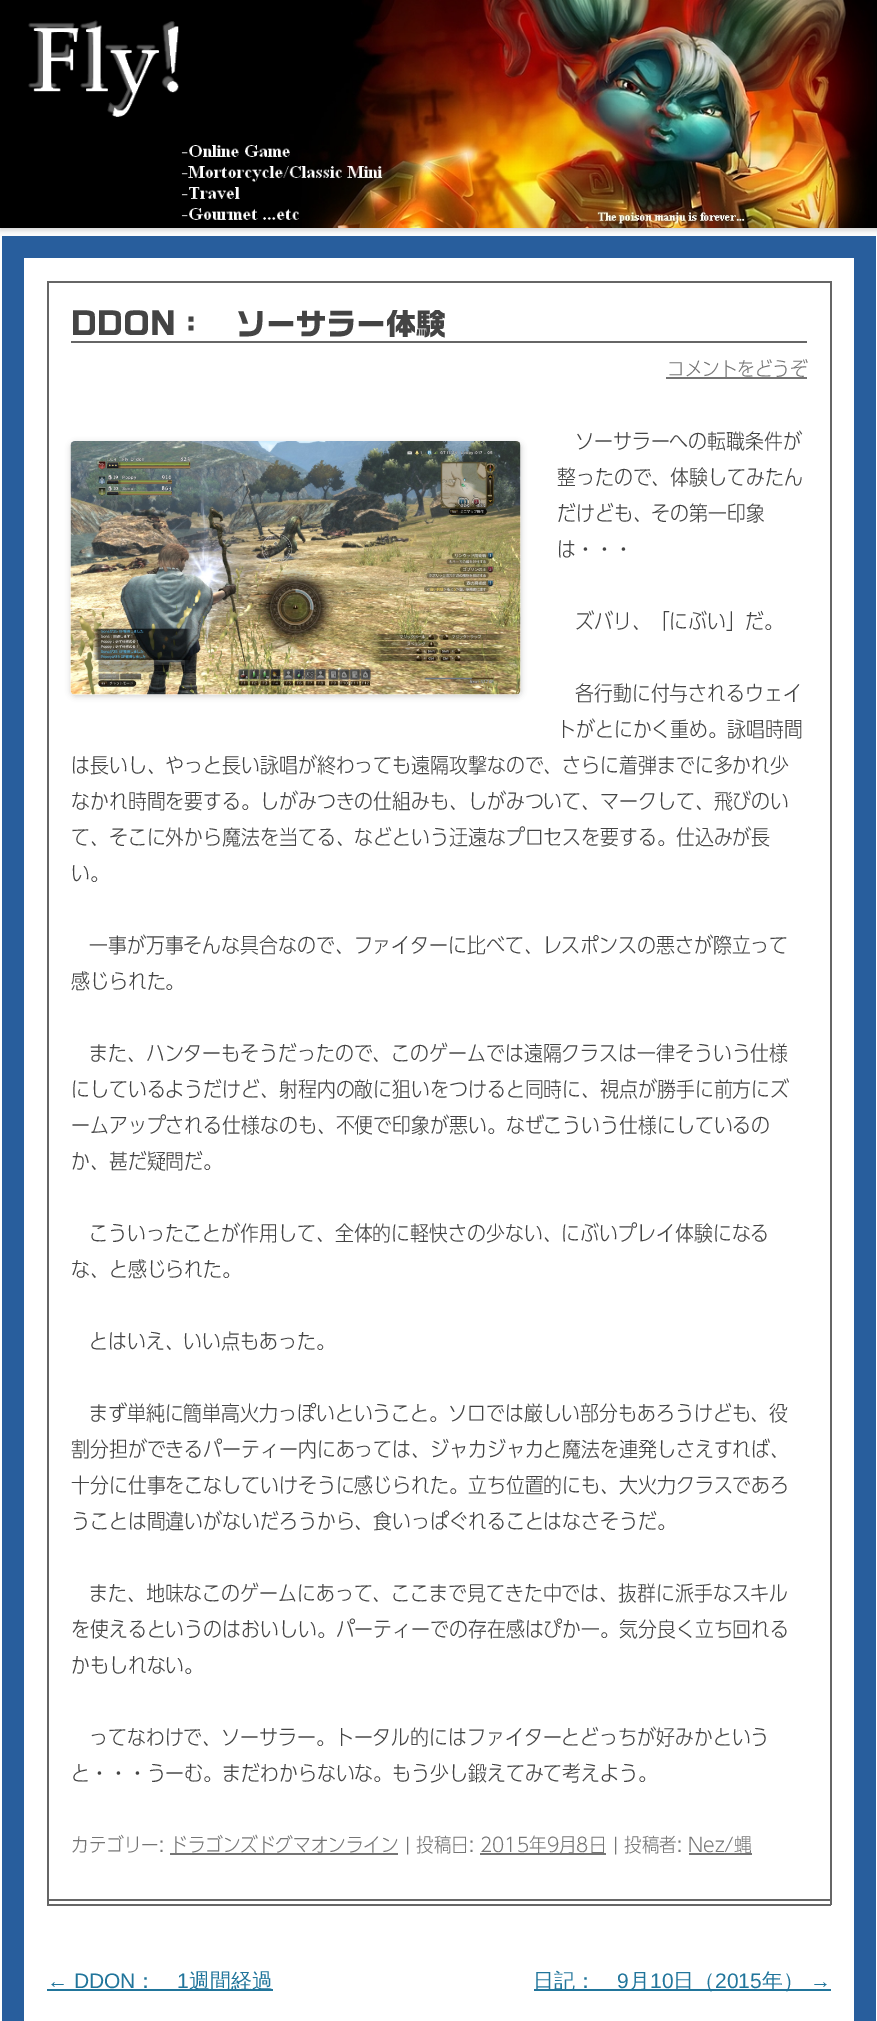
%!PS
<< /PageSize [877 2021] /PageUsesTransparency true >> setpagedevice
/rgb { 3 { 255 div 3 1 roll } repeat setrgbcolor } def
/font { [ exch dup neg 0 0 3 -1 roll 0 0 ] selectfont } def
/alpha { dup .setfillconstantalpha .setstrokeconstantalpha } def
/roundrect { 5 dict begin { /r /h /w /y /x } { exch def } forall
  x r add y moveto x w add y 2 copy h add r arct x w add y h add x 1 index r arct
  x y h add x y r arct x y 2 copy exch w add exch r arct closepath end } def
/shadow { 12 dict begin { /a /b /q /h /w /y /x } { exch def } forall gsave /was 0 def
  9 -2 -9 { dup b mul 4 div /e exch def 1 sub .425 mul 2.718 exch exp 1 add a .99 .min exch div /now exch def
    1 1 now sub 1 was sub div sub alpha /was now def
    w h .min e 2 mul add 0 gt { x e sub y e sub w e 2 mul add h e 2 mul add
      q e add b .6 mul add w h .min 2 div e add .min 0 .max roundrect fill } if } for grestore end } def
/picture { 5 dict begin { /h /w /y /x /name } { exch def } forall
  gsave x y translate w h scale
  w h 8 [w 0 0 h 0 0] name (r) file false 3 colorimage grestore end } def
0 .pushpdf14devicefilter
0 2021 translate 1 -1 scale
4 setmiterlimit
255 255 255 rgb
0 0 877 2021 rectfill
40 94 157 rgb
2 236 874 1785 rectfill
0 0 0 rgb
0 2 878 228 0 3 0.2 shadow
(img/1.rgb) 0 0 877 228 picture
[
  [24 258 830 1763 255 255 255]
  [47 281 784 2 102 102 102]
  [830 281 2 1624 102 102 102]
  [47 1899 784 2 102 102 102]
  [47 1904 784 2 102 102 102]
  [47 281 2 1624 102 102 102]
  [71 341 736 2 102 102 102]
  [666 377 141 2 117 117 117]
] { aload pop rgb rectfill } forall
0 0 0 rgb
71 443 450 253 5 3 0.2 shadow
(img/2.rgb) 70 441 451 254 picture
[
  [480 1853 126 2 117 117 117]
  [689 1853 63 2 117 117 117]
  [170 1853 228 2 117 117 117]
  [47 1989 226 2 33 117 155]
  [534 1989 297 2 33 117 155]
] { aload pop rgb rectfill } forall
/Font-Regular 30 font
68 68 68 rgb
71 335 moveto (DDON：　ソーサラー体験) show
/Font-Light 19.5 font
117 117 117 rgb
667 376 moveto (コメントをどうぞ) show
/Font-Light 21 font
68 68 68 rgb
[
  [(ソーサラーへの転職条件が) 575 449]
  [(整ったので、体験してみたん) 557 485]
  [(だけども、その第一印象) 557 521]
  [(は・・・) 557 557]
  [(ズバリ、「にぶい」だ。) 575 629]
  [(各行動に付与されるウェイ) 575 701]
  [(トがとにかく重め。詠唱時間) 557 737]
  [(は長いし、やっと長い詠唱が終わっても遠隔攻撃なので、さらに着弾までに多かれ少) 71 773]
  [(なかれ時間を要する。しがみつきの仕組みも、しがみついて、マークして、飛びのい) 71 809]
  [(て、そこに外から魔法を当てる、などという迂遠なプロセスを要する。仕込みが長) 71 845]
  [(い。) 71 881]
  [(一事が万事そんな具合なので、ファイターに比べて、レスポンスの悪さが際立って) 89 953]
  [(感じられた。) 71 989]
  [(また、ハンターもそうだったので、このゲームでは遠隔クラスは一律そういう仕様) 89 1061]
  [(にしているようだけど、射程内の敵に狙いをつけると同時に、視点が勝手に前方にズ) 71 1097]
  [(ームアップされる仕様なのも、不便で印象が悪い。なぜこういう仕様にしているの) 71 1133]
  [(か、甚だ疑問だ。) 71 1169]
  [(こういったことが作用して、全体的に軽快さの少ない、にぶいプレイ体験になる) 89 1241]
  [(な、と感じられた。) 71 1277]
  [(とはいえ、いい点もあった。) 89 1349]
  [(まず単純に簡単高火力っぽいということ。ソロでは厳しい部分もあろうけども、役) 89 1421]
  [(割分担ができるパーティー内にあっては、ジャカジャカと魔法を連発しさえすれば、) 71 1457]
  [(十分に仕事をこなしていけそうに感じられた。立ち位置的にも、大火力クラスであろ) 71 1493]
  [(うことは間違いがないだろうから、食いっぱぐれることはなさそうだ。) 71 1529]
  [(また、地味なこのゲームにあって、ここまで見てきた中では、抜群に派手なスキル) 89 1601]
  [(を使えるというのはおいしい。パーティーでの存在感はぴか一。気分良く立ち回れる) 71 1637]
  [(かもしれない。) 71 1673]
  [(ってなわけで、ソーサラー。トータル的にはファイターとどっちが好みかという) 89 1745]
  [(と・・・うーむ。まだわからないな。もう少し鍛えてみて考えよう。) 71 1781]
] { aload pop moveto show } forall
/Font-Light 19.5 font
117 117 117 rgb
[
  [(カテゴリー: ドラゴンズドグマオンライン | 投稿日:) 71 1852]
  [(2015年9月8日 | 投稿者:) 480 1852]
  [(Nez/蝿) 688 1852]
] { aload pop moveto show } forall
/LiberationSans-Regular 21 font
33 117 155 rgb
47 1988 moveto (← DDON) show
/WenQuanYiZenHei-Medium 21 font
135 1988 moveto (：) show
/LiberationSans-Regular 21 font
177 1988 moveto (1) show
/WenQuanYiZenHei-Medium 21 font
189 1988 moveto (週間経過) show
533 1988 moveto (日記：) show
/LiberationSans-Regular 21 font
617 1988 moveto (9) show
/WenQuanYiZenHei-Medium 21 font
629 1988 moveto (月) show
/LiberationSans-Regular 21 font
650 1988 moveto (10) show
/WenQuanYiZenHei-Medium 21 font
673 1988 moveto (日（) show
/LiberationSans-Regular 21 font
715 1988 moveto (2015) show
/WenQuanYiZenHei-Medium 21 font
762 1988 moveto (年）) show
/LiberationSans-Regular 21 font
810 1988 moveto (→) show
.poppdf14devicefilter showpage
